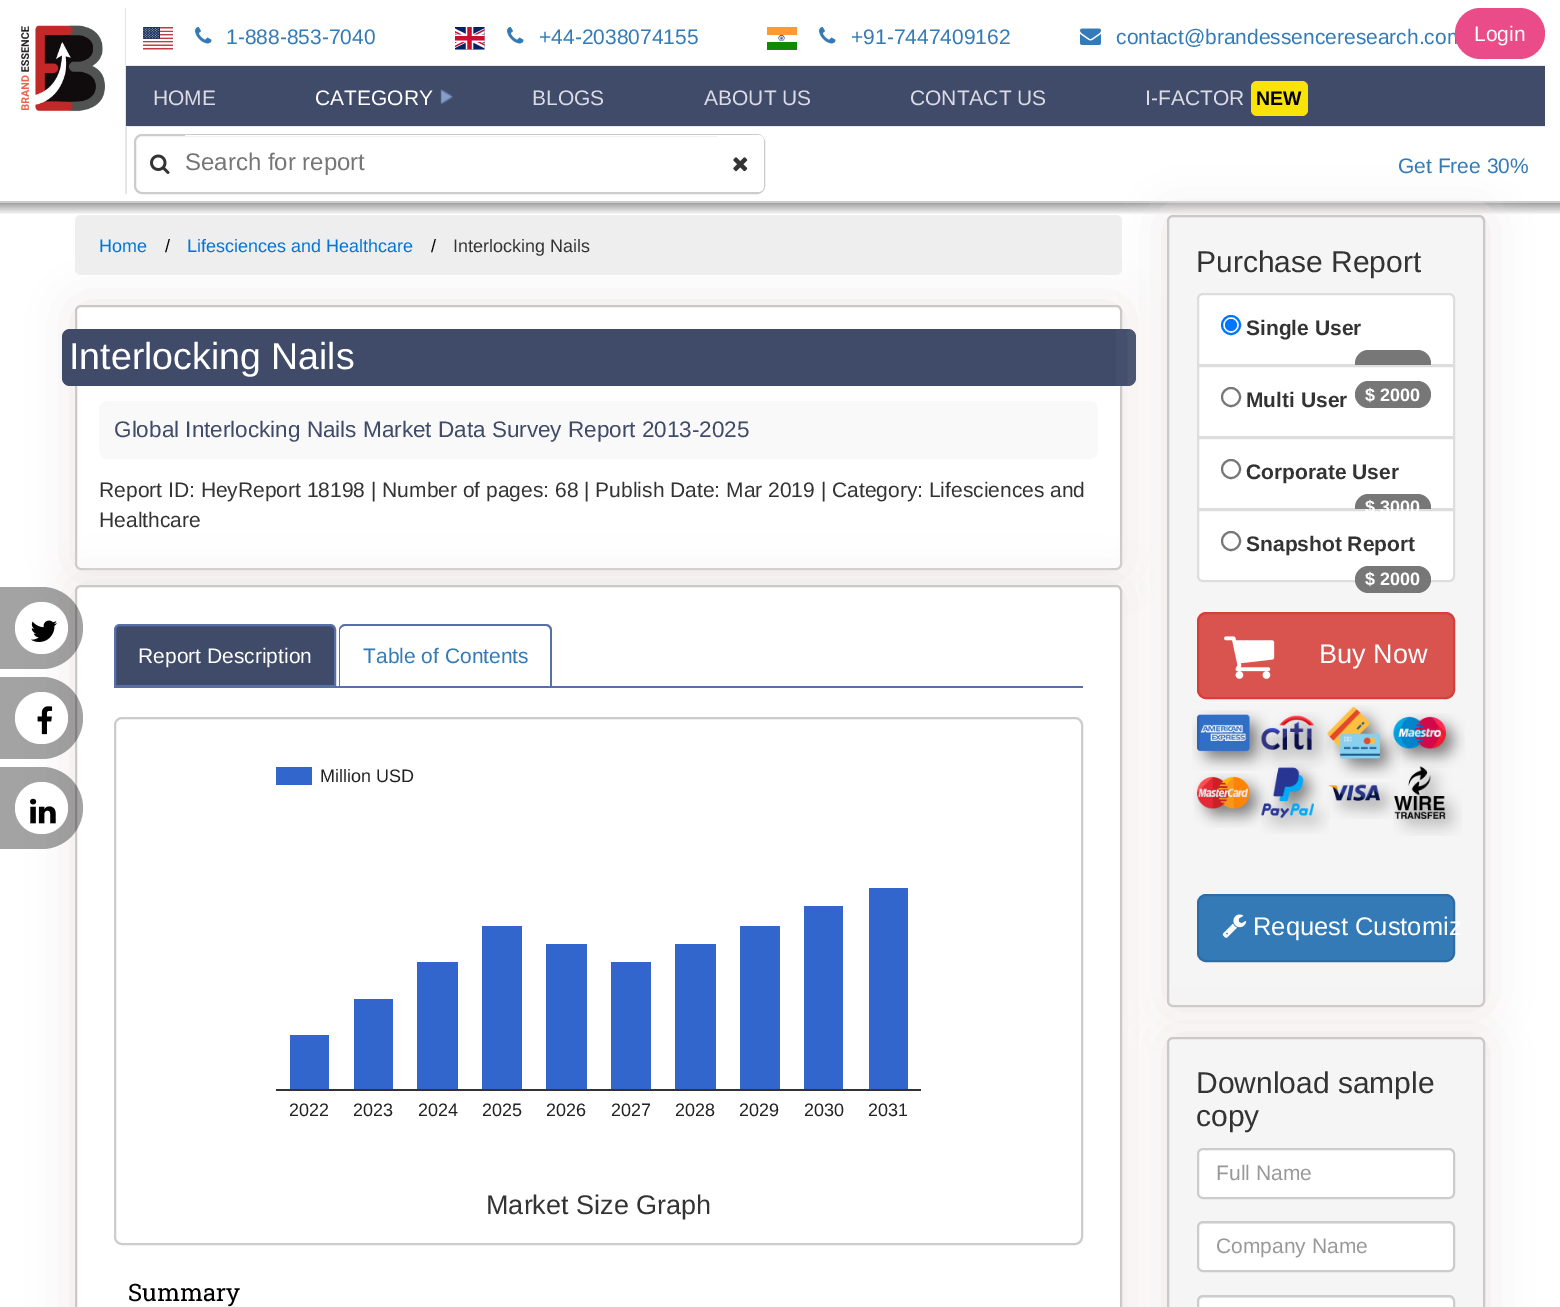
%!PS
<< /PageSize [1560 1307] /PageUsesTransparency true >> setpagedevice
/rgb { 3 { 255 div 3 1 roll } repeat setrgbcolor } def
/font { [ exch dup neg 0 0 3 -1 roll 0 0 ] selectfont } def
/alpha { dup .setfillconstantalpha .setstrokeconstantalpha } def
/circle { newpath 0 360 arc closepath } def
/roundrect { 5 dict begin { /r /h /w /y /x } { exch def } forall
  x r add y moveto x w add y 2 copy h add r arct x w add y h add x 1 index r arct
  x y h add x y r arct x y 2 copy exch w add exch r arct closepath end } def
/shadow { 12 dict begin { /a /b /q /h /w /y /x } { exch def } forall gsave /was 0 def
  9 -2 -9 { dup b mul 4 div /e exch def 1 sub .425 mul 2.718 exch exp 1 add a .99 .min exch div /now exch def
    1 1 now sub 1 was sub div sub alpha /was now def
    w h .min e 2 mul add 0 gt { x e sub y e sub w e 2 mul add h e 2 mul add
      q e add b .6 mul add w h .min 2 div e add .min 0 .max roundrect fill } if } for grestore end } def
/picture { 5 dict begin { /h /w /y /x /name } { exch def } forall
  gsave x y translate w h scale
  w h 8 [w 0 0 h 0 0] name (r) file false 3 colorimage grestore end } def
0 .pushpdf14devicefilter
0 1307 translate 1 -1 scale
4 setmiterlimit
255 255 255 rgb
0 0 1560 1307 rectfill
204 204 204 rgb
0 201 1560 2 rectfill
(img/1.rgb) 21 25 84 87 picture
[
  [125 8 2 186 229 229 229]
  [126 8 1 57 255 255 255]
  [126 65 1419 1 233 235 239]
] { aload pop rgb rectfill } forall
(img/2.rgb) 143 27 30 23 picture
(img/3.rgb) 195 27 17 17 picture
(img/4.rgb) 455 27 30 23 picture
(img/3.rgb) 507 27 17 17 picture
(img/5.rgb) 767 27 30 23 picture
(img/3.rgb) 819 27 17 17 picture
(img/6.rgb) 1080 28 21 17 picture
126 126 1419 1 rectfill
63 75 105 rgb
126 66 1419 60 rectfill
(img/7.rgb) 440 89 14 15 picture
250 227 8 rgb
1251 81 57 35 6 roundrect fill
204 204 204 rgb
2 setlinewidth
135 135 629 58 7 roundrect stroke
(img/8.rgb) 150 154 20 20 picture
255 255 255 rgb
185 135 532 1 rectfill
717 135 moveto 758 135 lineto 761.5 135 764 137.5 764 141 curveto 764 186 lineto 764 189.5 761.5 192 758 192 curveto 717 192 lineto closepath fill
(img/9.rgb) 733 157 15 15 picture
gsave 0 203 moveto 1560 203 lineto 1560 215 lineto 0 215 lineto closepath clip newpath
<< /ShadingType 2 /ColorSpace /DeviceRGB /Coords [780 202 780 215] /Extend [true true] /Function << /FunctionType 2 /Domain [0 1] /C0 [0.6 0.6 0.6] /C1 [1 1 1] /N 1 >> >> shfill grestore
238 238 238 rgb
75 215 1047 60 6 roundrect fill
237 229 229 rgb
75 305 1047 265 6 22.5 1 shadow
255 255 255 rgb
76 306 1045 263 5 roundrect gsave fill grestore
204 200 200 rgb
stroke
237 229 229 rgb
75 585 1047 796 6 22.5 1 shadow
255 255 255 rgb
76 586 1045 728 5 roundrect gsave fill grestore
204 200 200 rgb
stroke
0.36 alpha
0 0 0 rgb
-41 587 moveto 42 587 lineto 64.5 587 83 605.5 83 628 curveto 83 650.5 64.5 669 42 669 curveto -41 669 lineto closepath fill
1 alpha
255 255 255 rgb
15 602 53 52 26 roundrect fill
(img/10.rgb) 31 620 26 22 picture
0.36 alpha
0 0 0 rgb
-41 677 moveto 42 677 lineto 64.5 677 83 695.5 83 718 curveto 83 740.5 64.5 759 42 759 curveto -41 759 lineto closepath fill
1 alpha
255 255 255 rgb
15 692 53 52 26 roundrect fill
(img/11.rgb) 37 706 16 29 picture
0.36 alpha
0 0 0 rgb
-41 767 moveto 42 767 lineto 64.5 767 83 785.5 83 808 curveto 83 830.5 64.5 849 42 849 curveto -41 849 lineto closepath fill
1 alpha
255 255 255 rgb
15 782 53 52 26 roundrect fill
(img/12.rgb) 30 798 26 26 picture
63 75 105 rgb
62 329 1074 57 8 roundrect fill
249 249 249 rgb
99 401 999 58 8 roundrect fill
88 111 167 rgb
114 686 969 2 rectfill
63 75 105 rgb
120 625 moveto 330 625 lineto 333 625 335 627 335 630 curveto 335 686 lineto 115 686 lineto 115 630 lineto 115 627 117 625 120 625 curveto closepath gsave fill grestore
88 111 167 rgb
stroke
345 624 moveto 546 624 lineto 549 624 552 627 552 630 curveto 552 686 lineto 339 686 lineto 339 630 lineto 339 627 342 624 345 624 curveto closepath 345 626 moveto 546 626 lineto 548 626 550 628 550 630 curveto 550 686 lineto 340 686 lineto 340 630 lineto 340 628 343 626 345 626 curveto closepath eofill
204 204 204 rgb
115 718 967 526 7 roundrect stroke
[
  [276 767 36 18 51 102 204]
  [290 1035 39 54 51 102 204]
  [276 1089 645 2 51 51 51]
  [354 999 39 90 51 102 204]
  [417 962 41 127 51 102 204]
  [482 926 40 163 51 102 204]
  [546 944 41 145 51 102 204]
  [611 962 40 127 51 102 204]
  [675 944 41 145 51 102 204]
  [740 926 40 163 51 102 204]
  [804 906 39 183 51 102 204]
  [869 888 39 201 51 102 204]
] { aload pop rgb rectfill } forall
237 229 229 rgb
1167 215 318 792 6 22.5 1 shadow
245 245 245 rgb
1168 216 316 790 5 roundrect gsave fill grestore
204 200 200 rgb
stroke
255 255 255 rgb
1203 294 moveto 1449 294 lineto 1452 294 1454 296 1454 299 curveto 1454 365 lineto 1198 365 lineto 1198 299 lineto 1198 296 1200 294 1203 294 curveto closepath gsave fill grestore
221 221 221 rgb
stroke
0 117 255 rgb
1231 325 9 circle stroke
1231 325 6 circle fill
119 119 119 rgb
1355 350 76 27 13.5 roundrect fill
255 255 255 rgb
1198 366 moveto 1454 366 lineto 1454 437 lineto 1198 437 lineto closepath gsave fill grestore
221 221 221 rgb
stroke
118 118 118 rgb
1231 397 9 circle stroke
119 119 119 rgb
1355 381 76 27 13.5 roundrect fill
255 255 255 rgb
1198 438 moveto 1454 438 lineto 1454 509 lineto 1198 509 lineto closepath gsave fill grestore
221 221 221 rgb
stroke
118 118 118 rgb
1231 469 9 circle stroke
119 119 119 rgb
1355 494 76 27 13.5 roundrect fill
255 255 255 rgb
1198 510 moveto 1454 510 lineto 1454 576 lineto 1454 579 1452 581 1449 581 curveto 1203 581 lineto 1200 581 1198 579 1198 576 curveto closepath gsave fill grestore
221 221 221 rgb
stroke
118 118 118 rgb
1231 541 9 circle stroke
119 119 119 rgb
1355 566 76 27 13.5 roundrect fill
217 83 79 rgb
1198 613 256 85 8 roundrect gsave fill grestore
212 63 58 rgb
stroke
(img/13.rgb) 1224 636 51 43 picture
(img/14.rgb) 1192 710 78 61 picture
(img/15.rgb) 1259 712 72 56 picture
(img/16.rgb) 1326 705 74 74 picture
(img/17.rgb) 1390 713 75 55 picture
(img/18.rgb) 1193 773 75 55 picture
(img/19.rgb) 1261 763 68 71 picture
(img/20.rgb) 1327 782 70 37 picture
(img/21.rgb) 1393 766 69 70 picture
51 122 183 rgb
1198 895 256 66 8 roundrect gsave fill grestore
46 109 164 rgb
stroke
(img/22.rgb) 1222 914 25 24 picture
237 229 229 rgb
1167 1037 318 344 6 22.5 1 shadow
245 245 245 rgb
1168 1038 316 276 5 roundrect gsave fill grestore
204 200 200 rgb
stroke
255 255 255 rgb
1197 1148 258 51 6 roundrect fill
236 236 236 rgb
1203 1150 moveto 1449 1150 lineto 1451 1150 1454 1153 1454 1155 curveto 1454 1154 lineto 1454 1151 1452 1149 1449 1149 curveto 1204 1149 lineto 1202 1149 1200 1150 1199 1152 curveto 1200 1151 1202 1150 1203 1150 curveto closepath fill
204 204 204 rgb
1198 1149 256 49 5 roundrect stroke
255 255 255 rgb
1197 1221 258 51 6 roundrect fill
236 236 236 rgb
1203 1224 moveto 1449 1224 lineto 1451 1224 1454 1226 1454 1228 curveto 1454 1225 1452 1223 1449 1223 curveto 1204 1223 lineto 1202 1223 1201 1224 1200 1225 curveto closepath fill
204 204 204 rgb
1198 1222 256 49 5 roundrect stroke
255 255 255 rgb
1197 1295 258 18 6 roundrect fill
236 236 236 rgb
1203 1298 moveto 1449 1298 lineto 1451 1298 1454 1300 1454 1302 curveto 1454 1301 lineto 1454 1298 1452 1296 1449 1296 curveto 1204 1296 lineto 1202 1296 1200 1298 1199 1300 curveto 1200 1299 1202 1298 1203 1298 curveto closepath fill
204 204 204 rgb
1198 1296 256 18 5 roundrect stroke
/LiberationSans-Regular 21 font
51 122 183 rgb
[
  [(1-888-853-7040) 226 44]
  [(+44-2038074155) 539 44]
  [(+91-7447409162) 851 44]
  [(contact@brandessenceresearch.com) 1116 44]
] { aload pop moveto show } forall
234 76 137 rgb
1455 8 90 51 25.5 roundrect fill
255 255 255 rgb
1474 41 moveto (Login) show
219 219 229 rgb
153 105 moveto (HOME) show
255 255 255 rgb
315 105 moveto (CATEGORY) show
219 219 229 rgb
[
  [(BLOGS) 532 105]
  [(ABOUT US) 704 105]
  [(CONTACT US) 910 105]
  [(I-FACTOR) 1145 105]
] { aload pop moveto show } forall
/LiberationSans-Bold 19.5 font
0 0 0 rgb
1256 105 moveto (NEW) show
/LiberationSans-Regular 24 font
117 117 117 rgb
185 170 moveto (Search for report) show
/LiberationSans-Regular 21 font
51 122 183 rgb
1398 173 moveto (Get Free 30%) show
/LiberationSans-Regular 18 font
2 117 216 rgb
99 252 moveto (Home) show
0 0 0 rgb
165 252 moveto (/) show
2 117 216 rgb
187 252 moveto (Lifesciences and Healthcare) show
0 0 0 rgb
431 252 moveto (/) show
51 51 51 rgb
453 252 moveto (Interlocking Nails) show
/LiberationSans-Regular 37.5 font
255 255 255 rgb
69 369 moveto (Interlocking Nails) show
/LiberationSans-Regular 22.5 font
63 75 105 rgb
114 437 moveto (Global Interlocking Nails Market Data Survey Report 2013-2025) show
/LiberationSans-Regular 21 font
51 51 51 rgb
99 497 moveto (Report ID: HeyReport 18198 | Number of pages: 68 | Publish Date: Mar 2019 | Category: Lifesciences and) show
99 527 moveto (Healthcare) show
255 255 255 rgb
138 663 moveto (Report Description) show
51 122 183 rgb
363 663 moveto (Table of Contents) show
/LiberationSans-Regular 18 font
34 34 34 rgb
[
  [(Million USD) 320 782]
  [(2022) 289 1116]
  [(2023) 353 1116]
  [(2024) 418 1116]
  [(2025) 482 1116]
  [(2026) 546 1116]
  [(2027) 611 1116]
  [(2028) 675 1116]
  [(2029) 739 1116]
  [(2030) 804 1116]
  [(2031) 868 1116]
] { aload pop moveto show } forall
/LiberationSans-Regular 27 font
51 51 51 rgb
486 1214 moveto (Market Size Graph) show
/RobotoSlab-Regular 24 font
0 0 0 rgb
128 1301 moveto (Summary) show
/LiberationSans-Regular 30 font
51 51 51 rgb
1196 272 moveto (Purchase Report) show
/LiberationSans-Bold 21 font
1246 335 moveto (Single User) show
1246 407 moveto (Multi User) show
/LiberationSans-Bold 18 font
255 255 255 rgb
1365 401 moveto ($ 2000) show
/LiberationSans-Bold 21 font
51 51 51 rgb
1246 479 moveto (Corporate User) show
/LiberationSans-Bold 18 font
255 255 255 rgb
1365 513 moveto ($ 3000) show
/LiberationSans-Bold 21 font
51 51 51 rgb
1246 551 moveto (Snapshot Report) show
/LiberationSans-Bold 18 font
255 255 255 rgb
1365 585 moveto ($ 2000) show
/LiberationSans-Regular 27 font
1319 663 moveto (Buy Now) show
/LiberationSans-Regular 25.5 font
1253 935 moveto (Request Customiz) show
/LiberationSans-Regular 30 font
51 51 51 rgb
1196 1093 moveto (Download sample) show
1196 1126 moveto (copy) show
/LiberationSans-Regular 21 font
153 153 153 rgb
1216 1180 moveto (Full Name) show
gsave
1217 1235 219 24 rectclip
1216 1253 moveto (Company Name) show
grestore
.poppdf14devicefilter showpage
